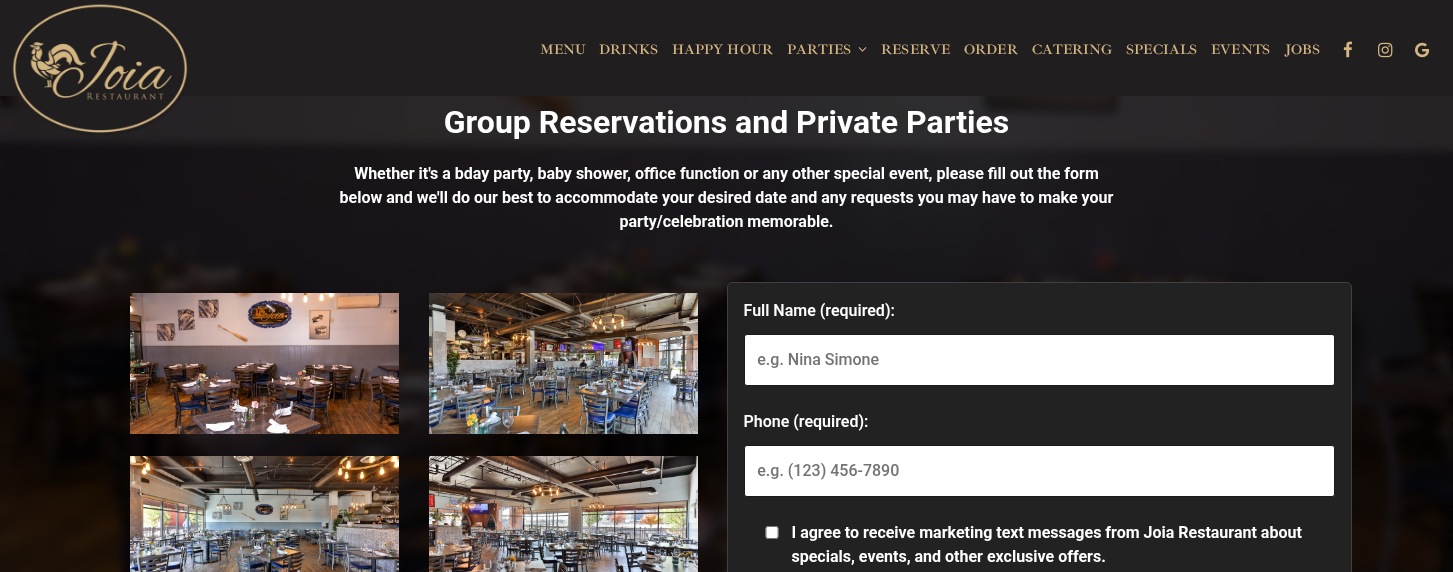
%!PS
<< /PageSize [1453 572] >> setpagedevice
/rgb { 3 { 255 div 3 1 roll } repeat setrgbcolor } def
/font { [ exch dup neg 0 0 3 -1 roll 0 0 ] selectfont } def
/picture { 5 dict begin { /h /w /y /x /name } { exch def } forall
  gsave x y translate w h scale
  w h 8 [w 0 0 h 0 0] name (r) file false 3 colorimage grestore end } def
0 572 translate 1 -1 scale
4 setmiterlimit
255 255 255 rgb
0 0 1453 572 rectfill
32 30 31 rgb
0 0 1453 96 rectfill
(img/6.rgb) 0 96 1453 476 picture
(img/1.rgb) 12 4 176 131 picture
(img/2.rgb) 858 47 9 5 picture
(img/3.rgb) 1343 41 9 17 picture
(img/4.rgb) 1378 42 15 16 picture
(img/5.rgb) 1415 42 15 16 picture
/IbarraRealNova-SemiBold 14 font
212 182 131 rgb
[
  [(MENU) 540 54]
  [(DRINKS) 599 54]
  [(HAPPY HOUR) 672 54]
  [(PARTIES) 787 54]
  [(RESERVE) 881 54]
  [(ORDER) 964 54]
  [(CATERING) 1032 54]
  [(SPECIALS) 1126 54]
  [(EVENTS) 1211 54]
  [(JOBS) 1285 54]
] { aload pop moveto show } forall
showpage
